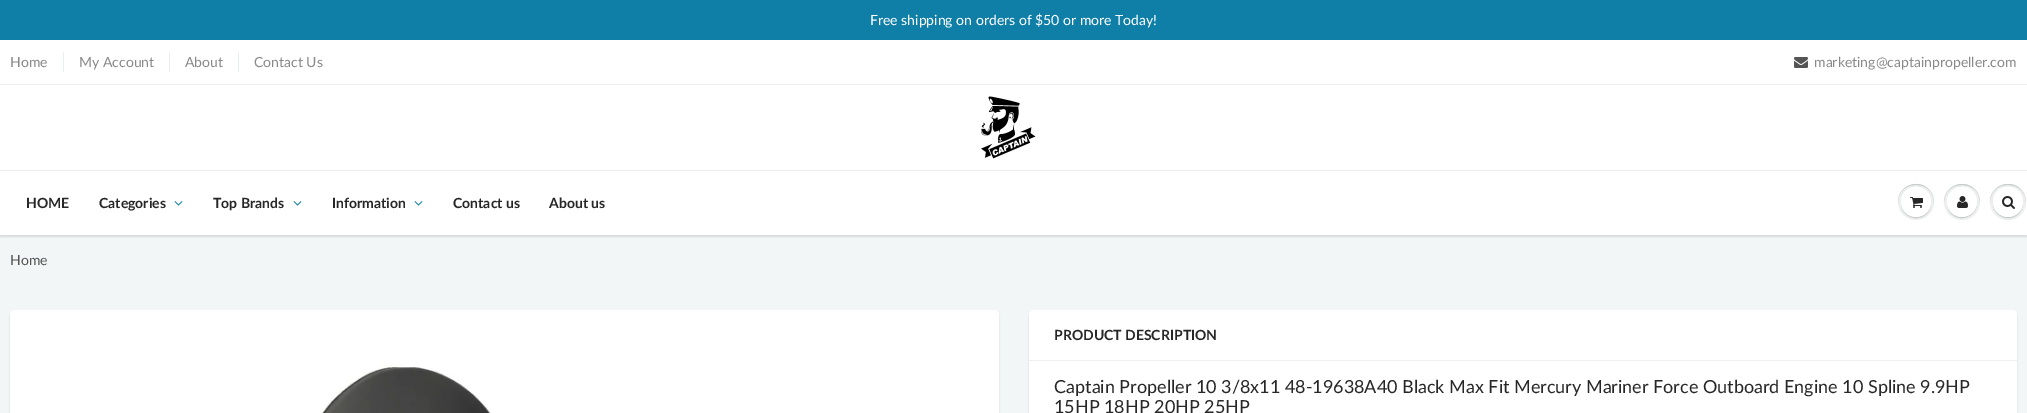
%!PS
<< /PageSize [2027 413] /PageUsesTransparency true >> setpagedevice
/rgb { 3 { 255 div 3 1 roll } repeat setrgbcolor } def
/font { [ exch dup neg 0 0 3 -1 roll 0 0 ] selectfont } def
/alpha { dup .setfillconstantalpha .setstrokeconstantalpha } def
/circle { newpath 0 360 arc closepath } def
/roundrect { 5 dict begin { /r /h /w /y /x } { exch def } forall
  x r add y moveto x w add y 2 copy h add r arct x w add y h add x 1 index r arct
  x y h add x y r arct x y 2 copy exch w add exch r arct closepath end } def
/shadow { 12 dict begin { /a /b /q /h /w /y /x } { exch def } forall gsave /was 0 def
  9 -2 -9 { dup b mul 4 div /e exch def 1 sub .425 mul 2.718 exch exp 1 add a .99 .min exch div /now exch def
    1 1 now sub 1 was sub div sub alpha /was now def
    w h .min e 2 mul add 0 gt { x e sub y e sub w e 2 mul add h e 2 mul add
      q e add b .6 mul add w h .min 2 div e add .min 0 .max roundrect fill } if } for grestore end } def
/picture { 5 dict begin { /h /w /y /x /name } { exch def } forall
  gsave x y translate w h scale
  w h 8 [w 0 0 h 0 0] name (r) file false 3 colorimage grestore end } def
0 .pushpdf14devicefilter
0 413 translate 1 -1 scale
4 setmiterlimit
255 255 255 rgb
0 0 2027 413 rectfill
[
  [0 0 2027 40 16 127 168]
  [63 52 1 20 236 239 239]
  [169 52 1 20 236 239 239]
  [238 52 1 20 236 239 239]
] { aload pop rgb rectfill } forall
(img/1.rgb) 1794 57 14 11 picture
0 84 2027 1 rectfill
(img/2.rgb) 981 96 55 63 picture
243 246 246 rgb
0 235 2027 178 rectfill
gsave
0 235 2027 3 rectclip
11 25 28 rgb
0 172 2027 65 0 1 0.12 shadow
grestore
236 239 239 rgb
0 170 2027 1 rectfill
(img/3.rgb) 174 201 9 5 picture
(img/3.rgb) 293 201 9 5 picture
(img/3.rgb) 414 201 9 5 picture
237 239 239 rgb
1916 202 18 circle fill
201 203 203 rgb
1916 185 moveto 1928 185 1934 193.5 1934 202.5 curveto 1934 199 1933 195 1931 192 curveto 1921 177 1897.5 184.5 1898 202.5 curveto 1898 193.5 1904 185 1916 185 curveto closepath fill
1931 202.5 moveto 1930.5 221.5 1901.5 221.5 1901 202.5 curveto 1900.5 217.5 1920 224 1928.5 211.5 curveto 1930 209 1931 205.5 1931 202.5 curveto closepath fill
255 255 255 rgb
1916 202 15 circle fill
1916 188 moveto 1926 188 1931 195 1931 202.5 curveto 1931 199.5 1930 196 1928.5 193.5 curveto 1920 181 1900.5 187.5 1901 202.5 curveto 1901 195 1906 188 1916 188 curveto closepath fill
(img/4.rgb) 1910 197 13 11 picture
237 239 239 rgb
1962 202 18 circle fill
201 203 203 rgb
1962 185 moveto 1974 185 1980 193.5 1980 202.5 curveto 1980 199 1979 195 1977 192 curveto 1967 177 1943.5 184.5 1944 202.5 curveto 1944 193.5 1950 185 1962 185 curveto closepath fill
1977 202.5 moveto 1976.5 221.5 1947.5 221.5 1947 202.5 curveto 1947 205.5 1948 209 1949.5 211.5 curveto 1958 224 1977.5 217.5 1977 202.5 curveto closepath fill
255 255 255 rgb
1962 202 15 circle fill
1962 188 moveto 1972 188 1977 195 1977 202.5 curveto 1977 199.5 1976 196 1974.5 193.5 curveto 1966 181 1946.5 187.5 1947 202.5 curveto 1947 195 1952 188 1962 188 curveto closepath fill
(img/5.rgb) 1957 196 11 12 picture
237 239 239 rgb
2008 202 18 circle fill
201 203 203 rgb
2008 185 moveto 2020 185 2026 193.5 2026 202.5 curveto 2026 199 2025 195 2023 192 curveto 2013 177 1989.5 184.5 1990 202.5 curveto 1990 193.5 1996 185 2008 185 curveto closepath fill
2023 202.5 moveto 2022.5 221.5 1993.5 221.5 1993 202.5 curveto 1992.5 217.5 2012 224 2020.5 211.5 curveto 2022 209 2023 205.5 2023 202.5 curveto closepath fill
255 255 255 rgb
2008 202 15 circle fill
2008 188 moveto 2018 188 2023 195 2023 202.5 curveto 2023 199.5 2022 196 2020.5 193.5 curveto 2012 181 1992.5 187.5 1993 202.5 curveto 1993 195 1998 188 2008 188 curveto closepath fill
(img/6.rgb) 2002 196 13 13 picture
11 25 28 rgb
10 312 989 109 5 1 0.1 shadow
255 255 255 rgb
10 310 989 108 5 roundrect fill
(img/7.rgb) 321 364 170 49 picture
11 25 28 rgb
1029 312 988 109 5 1 0.1 shadow
255 255 255 rgb
1029 310 988 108 5 roundrect fill
239 239 239 rgb
1029 360 988 1 rectfill
/Lato-Regular 14 font
255 255 255 rgb
870 25 moveto (Free shipping on orders of $50 or more Today!) show
137 137 137 rgb
[
  [(Home) 10 67]
  [(My Account) 79 67]
  [(About) 185 67]
  [(Contact Us) 254 67]
  [(marketing@captainpropeller.com) 1814 67]
] { aload pop moveto show } forall
/Lato-Bold 14 font
40 39 39 rgb
[
  [(HOME) 26 208]
  [(Categories) 99 208]
  [(Top Brands) 213 208]
  [(Information) 332 208]
  [(Contact us) 453 208]
  [(About us) 549 208]
] { aload pop moveto show } forall
/Lato-Regular 14 font
85 85 85 rgb
10 265 moveto (Home) show
/Lato-Bold 14 font
40 39 39 rgb
1054 340 moveto (PRODUCT DESCRIPTION) show
/Lato-Regular 18 font
1054 393 moveto (Captain Propeller 10 3/8x11 48-19638A40 Black Max Fit Mercury Mariner Force Outboard Engine 10 Spline 9.9HP) show
1054 413 moveto (15HP 18HP 20HP 25HP) show
.poppdf14devicefilter showpage
